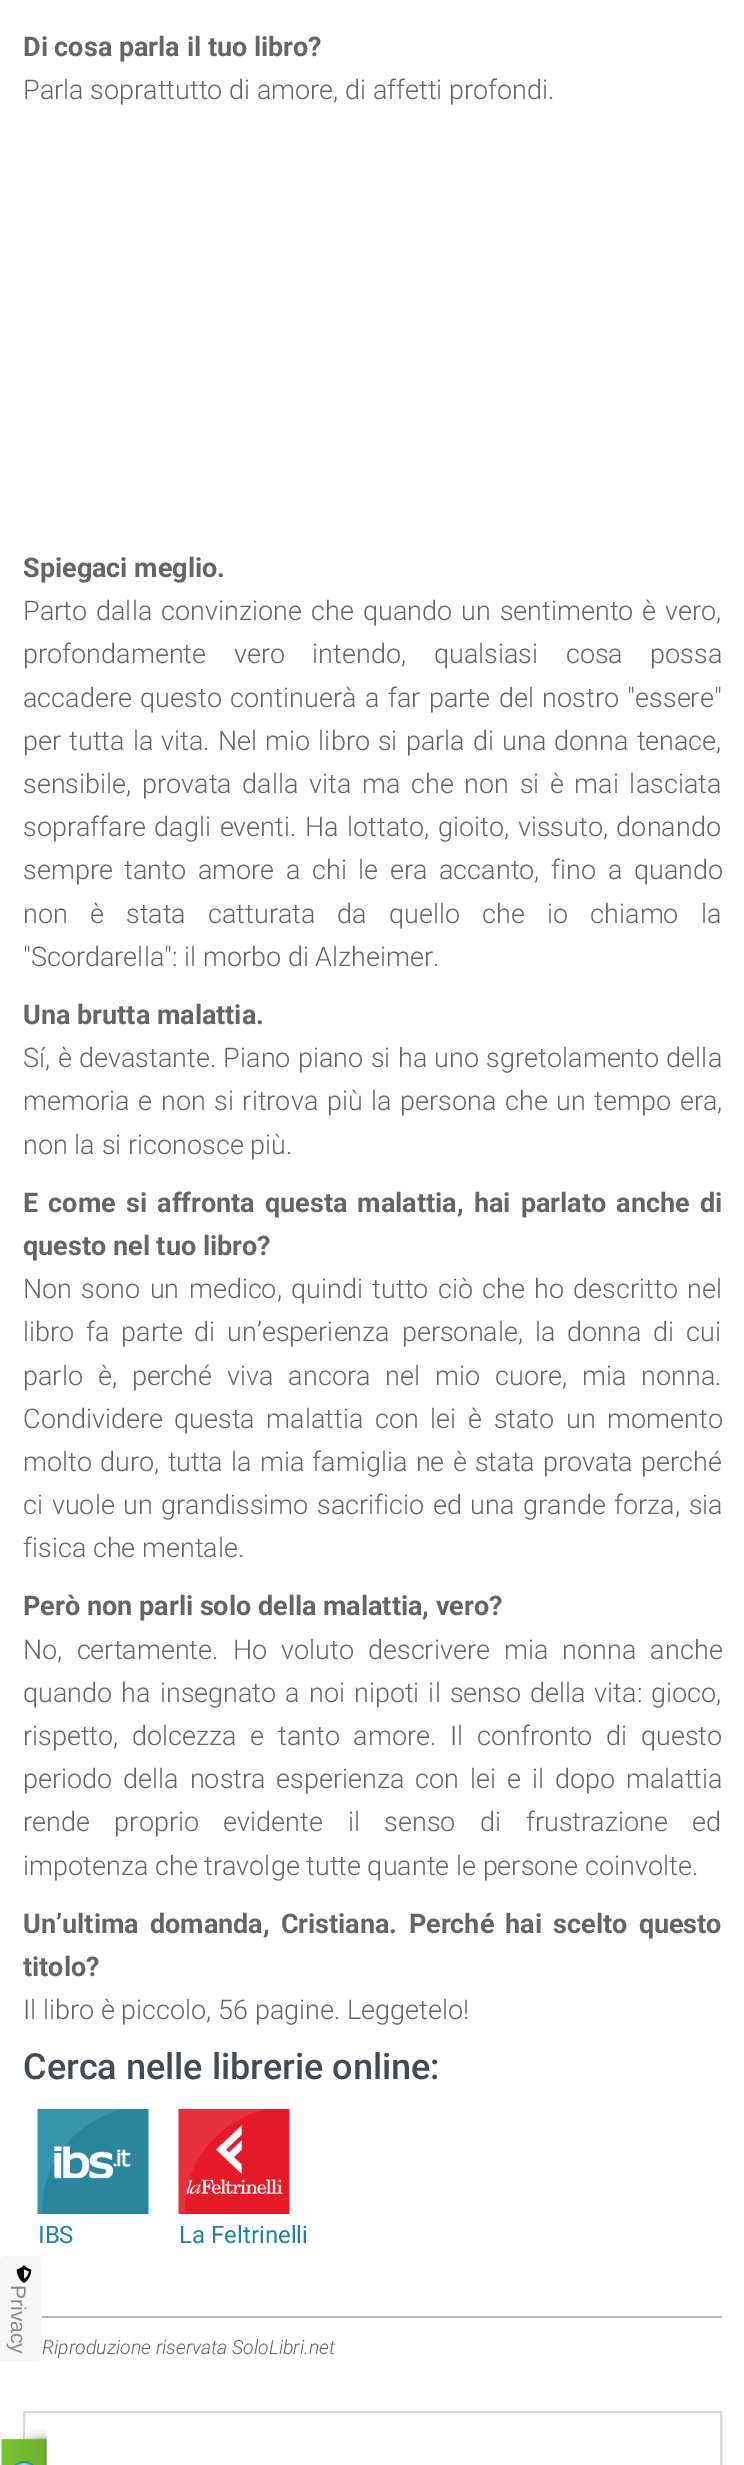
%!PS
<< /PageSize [744 2465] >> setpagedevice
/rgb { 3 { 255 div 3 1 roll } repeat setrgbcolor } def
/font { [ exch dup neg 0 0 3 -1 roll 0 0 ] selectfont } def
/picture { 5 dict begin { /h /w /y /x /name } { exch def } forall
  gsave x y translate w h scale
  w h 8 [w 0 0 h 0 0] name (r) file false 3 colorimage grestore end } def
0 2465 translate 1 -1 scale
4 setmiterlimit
255 255 255 rgb
0 0 744 2465 rectfill
247 247 247 rgb
5 2256 moveto 37 2256 lineto 40 2256 42 2258 42 2261 curveto 42 2356 lineto 42 2359 40 2361 37 2361 curveto 0 2361 lineto 0 2261 lineto 0 2258 2 2256 5 2256 curveto closepath fill
(img/1.rgb) 16 2265 16 18 picture
(img/2.rgb) 37 2109 112 105 picture
(img/3.rgb) 178 2109 112 105 picture
184 184 184 rgb
42 2316 680 2 rectfill
217 217 217 rgb
2 setlinewidth
24 2412 697 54 rectstroke
(img/4.rgb) 1 2429 46 36 picture
/LiberationSans-Regular 21 font
136 136 136 rgb
gsave 11 2285 translate 90 rotate 0 0 moveto (Privacy) show grestore
/Roboto-Bold 27 font
101 101 101 rgb
23 56 moveto (Di cosa parla il tuo libro?) show
/Roboto-Light 27 font
23 99 moveto (Parla soprattutto di amore, di affetti profondi.) show
/Roboto-Bold 27 font
23 577 moveto (Spiegaci meglio.) show
/Roboto-Light 27 font
23 620 moveto 2.4 0 32 (Parto dalla convinzione che quando un sentimento è vero,) widthshow
23 663 moveto 21 0 32 (profondamente vero intendo, qualsiasi cosa possa) widthshow
23 707 moveto 2 0 32 (accadere questo continuerà a far parte del nostro "essere") widthshow
23 750 moveto 1.5 0 32 (per tutta la vita. Nel mio libro si parla di una donna tenace,) widthshow
23 793 moveto 4 0 32 (sensibile, provata dalla vita ma che non si è mai lasciata) widthshow
23 836 moveto 2 0 32 (sopraffare dagli eventi. Ha lottato, gioito, vissuto, donando) widthshow
23 879 moveto 5 0 32 (sempre tanto amore a chi le era accanto, fino a quando) widthshow
23 923 moveto 15.5 0 32 (non è stata catturata da quello che io chiamo la) widthshow
23 966 moveto ("Scordarella": il morbo di Alzheimer.) show
/Roboto-Bold 27 font
23 1024 moveto (Una brutta malattia.) show
/Roboto-Light 27 font
23 1067 moveto 0.75 0 32 (Sí, è devastante. Piano piano si ha uno sgretolamento della) widthshow
23 1110 moveto 2 0 32 (memoria e non si ritrova più la persona che un tempo era,) widthshow
23 1154 moveto (non la si riconosce più.) show
/Roboto-Bold 27 font
23 1212 moveto 3.5 0 32 (E come si affronta questa malattia, hai parlato anche di) widthshow
23 1255 moveto (questo nel tuo libro?) show
/Roboto-Light 27 font
23 1298 moveto 2.75 0 32 (Non sono un medico, quindi tutto ciò che ho descritto nel) widthshow
23 1341 moveto 5.25 0 32 (libro fa parte di un’esperienza personale, la donna di cui) widthshow
23 1385 moveto 8.25 0 32 (parlo è, perché viva ancora nel mio cuore, mia nonna.) widthshow
23 1428 moveto 5 0 32 (Condividere questa malattia con lei è stato un momento) widthshow
23 1471 moveto 1.6 0 32 (molto duro, tutta la mia famiglia ne è stata provata perché) widthshow
23 1514 moveto 2 0 32 (ci vuole un grandissimo sacrificio ed una grande forza, sia) widthshow
23 1557 moveto (fisica che mentale.) show
/Roboto-Bold 27 font
23 1615 moveto (Però non parli solo della malattia, vero?) show
/Roboto-Light 27 font
23 1659 moveto 7.5 0 32 (No, certamente. Ho voluto descrivere mia nonna anche) widthshow
23 1702 moveto 2.4 0 32 (quando ha insegnato a noi nipoti il senso della vita: gioco,) widthshow
23 1745 moveto 7 0 32 (rispetto, dolcezza e tanto amore. Il confronto di questo) widthshow
23 1788 moveto 4.25 0 32 (periodo della nostra esperienza con lei e il dopo malattia) widthshow
23 1831 moveto 18 0 32 (rende proprio evidente il senso di frustrazione ed) widthshow
23 1875 moveto (impotenza che travolge tutte quante le persone coinvolte.) show
/Roboto-Bold 27 font
23 1933 moveto 4.5 0 32 (Un’ultima domanda, Cristiana. Perché hai scelto questo) widthshow
23 1976 moveto (titolo?) show
/Roboto-Light 27 font
23 2019 moveto (Il libro è piccolo, 56 pagine. Leggetelo!) show
/Roboto-Medium 36 font
68 74 81 rgb
23 2079 moveto (Cerca nelle librerie online:) show
/Roboto-Regular 24 font
31 128 173 rgb
38 2243 moveto (IBS) show
179 2243 moveto (La Feltrinelli) show
/Roboto-LightItalic 19.5 font
101 101 101 rgb
42 2354 moveto (Riproduzione riservata SoloLibri.net) show
showpage
